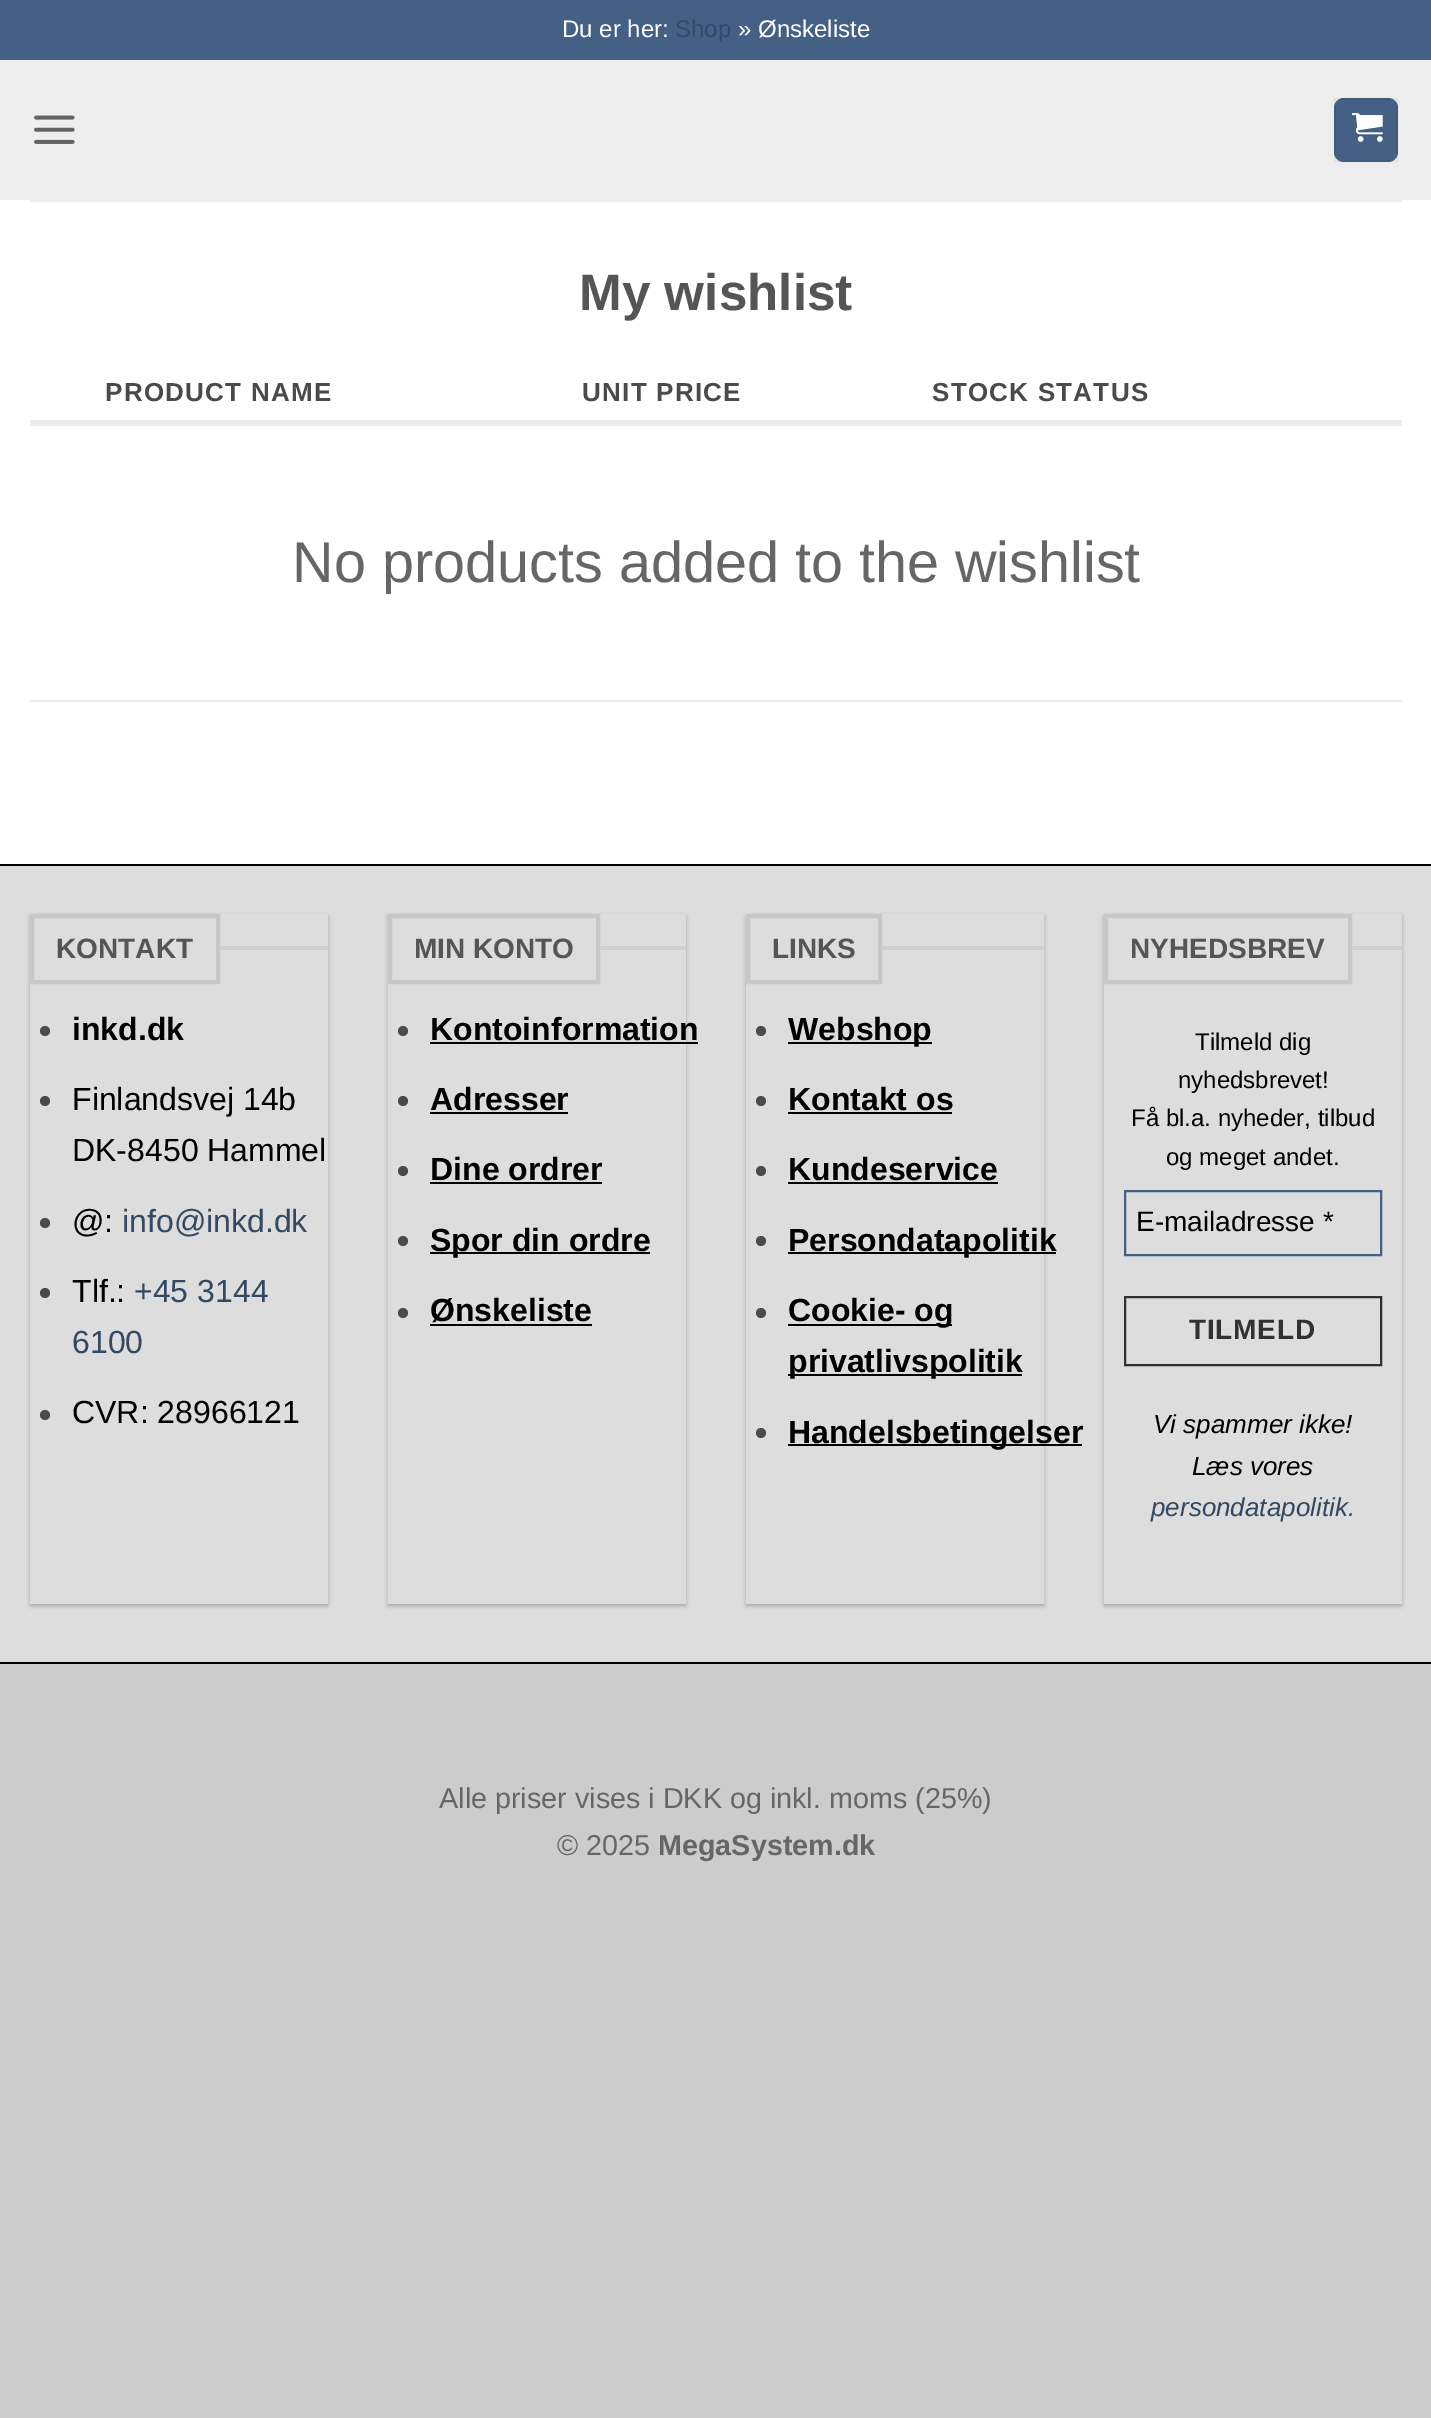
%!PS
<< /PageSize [1431 2418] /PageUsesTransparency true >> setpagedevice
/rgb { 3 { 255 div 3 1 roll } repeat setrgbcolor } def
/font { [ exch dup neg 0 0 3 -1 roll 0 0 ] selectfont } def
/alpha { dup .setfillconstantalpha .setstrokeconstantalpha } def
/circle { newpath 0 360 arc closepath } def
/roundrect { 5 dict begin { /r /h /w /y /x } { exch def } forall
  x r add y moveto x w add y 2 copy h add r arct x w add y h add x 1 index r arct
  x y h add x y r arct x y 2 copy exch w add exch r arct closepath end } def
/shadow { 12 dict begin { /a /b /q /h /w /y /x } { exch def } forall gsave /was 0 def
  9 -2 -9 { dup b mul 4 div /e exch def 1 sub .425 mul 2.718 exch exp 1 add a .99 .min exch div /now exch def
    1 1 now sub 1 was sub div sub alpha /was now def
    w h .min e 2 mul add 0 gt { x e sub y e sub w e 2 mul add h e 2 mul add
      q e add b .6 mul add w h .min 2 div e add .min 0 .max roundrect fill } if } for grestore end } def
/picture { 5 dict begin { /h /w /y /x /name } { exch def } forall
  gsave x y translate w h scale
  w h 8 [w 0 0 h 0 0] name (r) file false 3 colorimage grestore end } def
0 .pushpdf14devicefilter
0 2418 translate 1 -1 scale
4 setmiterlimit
204 204 204 rgb
0 0 1431 2418 rectfill
[
  [0 200 1431 664 255 255 255]
  [0 0 1431 60 68 96 132]
  [0 60 1431 140 238 238 238]
] { aload pop rgb rectfill } forall
(img/1.rgb) 34 115 41 29 picture
68 96 132 rgb
1334 98 64 64 10 roundrect fill
0.05 alpha
0 0 0 rgb
2 setlinewidth
1335 99 62 62 rectstroke
1 alpha
(img/2.rgb) 1352 113 31 29 picture
[
  [30 200 1372 2 237 237 237]
  [30 420 1372 6 236 236 236]
  [30 700 1372 2 236 236 236]
  [0 866 1431 796 221 221 221]
  [0 864 1431 2 0 0 0]
  [0 1662 1431 2 0 0 0]
] { aload pop rgb rectfill } forall
gsave
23 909 moveto 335 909 lineto 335 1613 lineto 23 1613 lineto closepath 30 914 moveto 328 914 lineto 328 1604 lineto 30 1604 lineto closepath eoclip newpath
30 916 298 690 0 2 0.24 shadow
grestore
199 199 199 rgb
4 setlinewidth
32 916 186 66 rectstroke
207 207 207 rgb
220 946 108 4 rectfill
74 74 74 rgb
45 1031 5 circle fill
45 1101 5 circle fill
45 1223 5 circle fill
45 1293 5 circle fill
45 1415 5 circle fill
gsave
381 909 moveto 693 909 lineto 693 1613 lineto 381 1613 lineto closepath 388 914 moveto 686 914 lineto 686 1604 lineto 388 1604 lineto closepath eoclip newpath
0 0 0 rgb
388 916 298 690 0 2 0.24 shadow
grestore
199 199 199 rgb
390 916 208 66 rectstroke
207 207 207 rgb
600 946 86 4 rectfill
74 74 74 rgb
403 1031 5 circle fill
0 0 0 rgb
430 1042 268 2 rectfill
74 74 74 rgb
403 1101 5 circle fill
0 0 0 rgb
430 1112 138 2 rectfill
74 74 74 rgb
403 1171 5 circle fill
0 0 0 rgb
430 1182 172 2 rectfill
74 74 74 rgb
403 1241 5 circle fill
0 0 0 rgb
430 1252 220 2 rectfill
74 74 74 rgb
403 1313 5 circle fill
0 0 0 rgb
430 1324 162 2 rectfill
gsave
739 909 moveto 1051 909 lineto 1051 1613 lineto 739 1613 lineto closepath 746 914 moveto 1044 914 lineto 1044 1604 lineto 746 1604 lineto closepath eoclip newpath
746 916 298 690 0 2 0.24 shadow
grestore
199 199 199 rgb
748 916 132 66 rectstroke
207 207 207 rgb
882 946 162 4 rectfill
74 74 74 rgb
761 1031 5 circle fill
0 0 0 rgb
788 1042 144 2 rectfill
74 74 74 rgb
761 1101 5 circle fill
0 0 0 rgb
788 1112 164 2 rectfill
74 74 74 rgb
761 1171 5 circle fill
0 0 0 rgb
788 1182 210 2 rectfill
74 74 74 rgb
761 1241 5 circle fill
0 0 0 rgb
788 1252 268 2 rectfill
74 74 74 rgb
761 1313 5 circle fill
0 0 0 rgb
788 1324 164 2 rectfill
788 1374 234 2 rectfill
74 74 74 rgb
761 1433 5 circle fill
0 0 0 rgb
788 1444 294 2 rectfill
gsave
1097 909 moveto 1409 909 lineto 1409 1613 lineto 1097 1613 lineto closepath 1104 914 moveto 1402 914 lineto 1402 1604 lineto 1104 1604 lineto closepath eoclip newpath
1104 916 298 690 0 2 0.24 shadow
grestore
199 199 199 rgb
1106 916 244 66 rectstroke
207 207 207 rgb
1352 946 50 4 rectfill
68 96 132 rgb
2 setlinewidth
1125 1191 256 64 rectstroke
49 49 49 rgb
1125 1297 256 68 rectstroke
/LiberationSans-Regular 24 font
255 255 255 rgb
562 37 moveto (Du er her:) show
51 72 98 rgb
675 37 moveto (Shop) show
255 255 255 rgb
738 37 moveto (» Ønskeliste) show
/LiberationSans-Bold 51.25 font
85 85 85 rgb
579 310 moveto (My wishlist) show
/LiberationSans-Bold 26 font
74 74 74 rgb
105 401 moveto 1.25 0 (PRODUCT NAME) ashow
582 401 moveto 1.25 0 (UNIT PRICE) ashow
932 401 moveto 1.25 0 (STOCK STATUS) ashow
/LiberationSans-Regular 57.6 font
102 102 102 rgb
292 582 moveto (No products added to the wishlist) show
/LiberationSans-Bold 28 font
85 85 85 rgb
56 958 moveto (KONTAKT) show
/LiberationSans-Bold 32 font
0 0 0 rgb
72 1040 moveto (inkd.dk) show
/LiberationSans-Regular 32 font
[
  [(Finlandsvej 14b) 72 1110]
  [(DK-8450 Hammel) 72 1161]
  [(@:) 72 1232]
] { aload pop moveto show } forall
51 72 98 rgb
122 1232 moveto (info@inkd.dk) show
0 0 0 rgb
72 1302 moveto (Tlf.:) show
51 72 98 rgb
134 1302 moveto (+45 3144) show
72 1353 moveto (6100) show
0 0 0 rgb
72 1423 moveto (CVR: 28966121) show
/LiberationSans-Bold 28 font
85 85 85 rgb
414 958 moveto (MIN KONTO) show
/LiberationSans-Bold 32 font
0 0 0 rgb
[
  [(Kontoinformation) 430 1040]
  [(Adresser) 430 1110]
  [(Dine ordrer) 430 1180]
  [(Spor din ordre) 430 1251]
  [(Ønskeliste) 430 1321]
] { aload pop moveto show } forall
/LiberationSans-Bold 28 font
85 85 85 rgb
772 958 moveto (LINKS) show
/LiberationSans-Bold 32 font
0 0 0 rgb
[
  [(Webshop) 788 1040]
  [(Kontakt os) 788 1110]
  [(Kundeservice) 788 1180]
  [(Persondatapolitik) 788 1251]
  [(Cookie- og) 788 1321]
  [(privatlivspolitik) 788 1372]
  [(Handelsbetingelser) 788 1443]
] { aload pop moveto show } forall
/LiberationSans-Bold 28 font
85 85 85 rgb
1130 958 moveto (NYHEDSBREV) show
/LiberationSans-Regular 24 font
0 0 0 rgb
[
  [(Tilmeld dig) 1195 1050]
  [(nyhedsbrevet!) 1178 1088]
  [(Få bl.a. nyheder, tilbud) 1131 1126]
  [(og meget andet.) 1166 1165]
] { aload pop moveto show } forall
/LiberationSans-Regular 28 font
1136 1231 moveto (E-mailadresse *) show
/LiberationSans-Bold 28 font
49 49 49 rgb
1189 1339 moveto 0.75 0 (TILMELD) ashow
/LiberationSans-Italic 26 font
0 0 0 rgb
1153 1433 moveto (Vi spammer ikke!) show
1192 1475 moveto (Læs vores) show
51 72 98 rgb
1151 1516 moveto (persondatapolitik.) show
/LiberationSans-Regular 28.75 font
102 102 102 rgb
439 1808 moveto (Alle priser vises i DKK og inkl. moms \(25%\)) show
557 1855 moveto (© 2025) show
/LiberationSans-Bold 28.75 font
658 1855 moveto (MegaSystem.dk) show
.poppdf14devicefilter showpage
